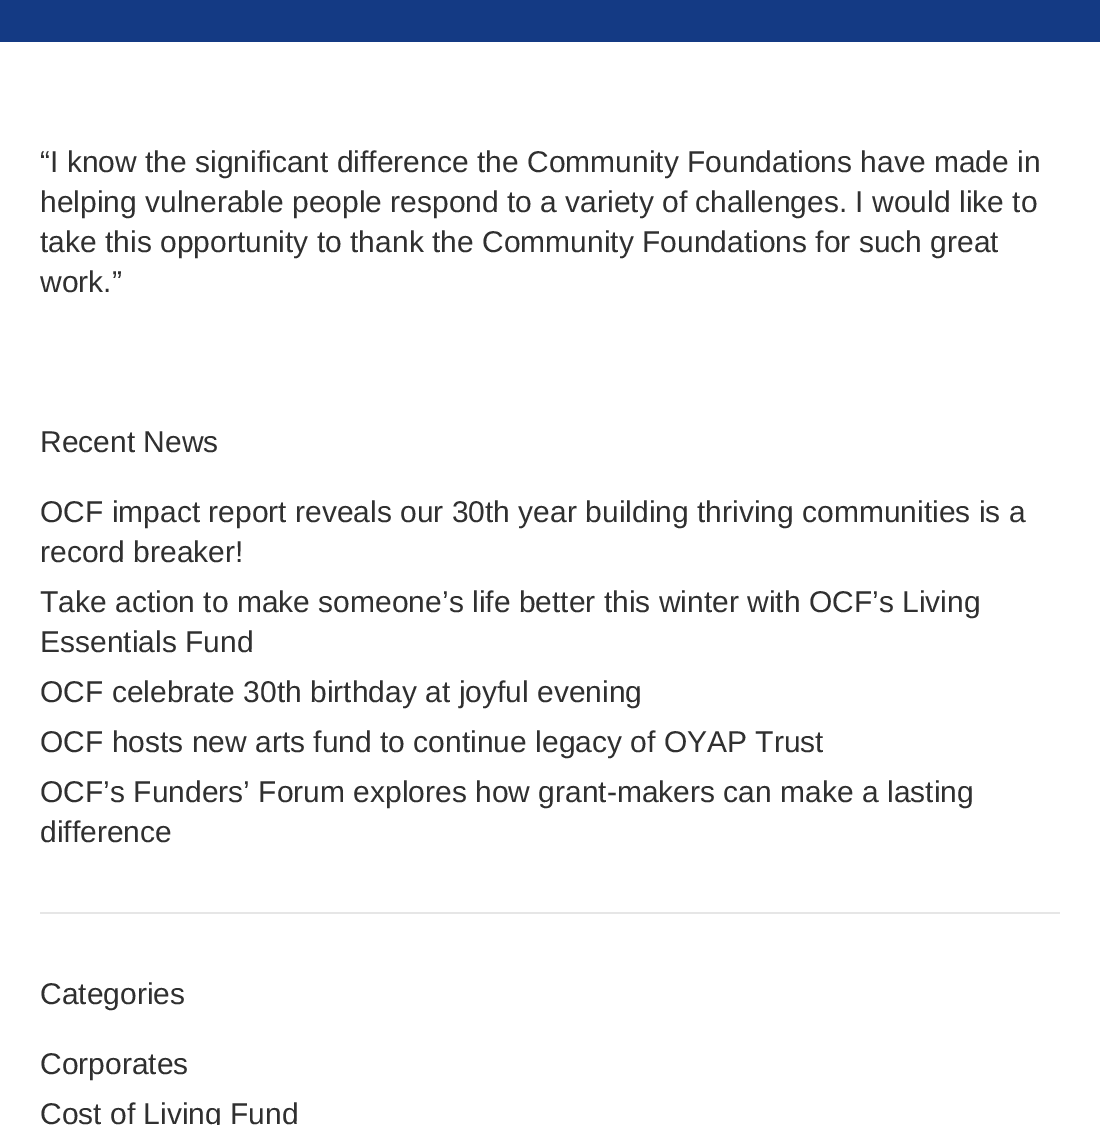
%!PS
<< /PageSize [1100 1125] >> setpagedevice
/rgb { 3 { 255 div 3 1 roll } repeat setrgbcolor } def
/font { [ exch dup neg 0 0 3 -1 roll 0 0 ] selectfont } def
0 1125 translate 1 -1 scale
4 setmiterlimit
255 255 255 rgb
0 0 1100 1125 rectfill
20 58 132 rgb
0 0 1100 42 rectfill
230 230 230 rgb
40 912 1020 2 rectfill
/LiberationSans-Regular 30 font
48 48 48 rgb
[
  [(“I know the significant difference the Community Foundations have made in) 40 172]
  [(helping vulnerable people respond to a variety of challenges. I would like to) 40 212]
  [(take this opportunity to thank the Community Foundations for such great) 40 252]
  [(work.”) 40 292]
  [(Recent News) 40 452]
  [(OCF impact report reveals our 30th year building thriving communities is a) 40 522]
  [(record breaker!) 40 562]
  [(Take action to make someone’s life better this winter with OCF’s Living) 40 612]
  [(Essentials Fund) 40 652]
  [(OCF celebrate 30th birthday at joyful evening) 40 702]
  [(OCF hosts new arts fund to continue legacy of OYAP Trust) 40 752]
  [(OCF’s Funders’ Forum explores how grant-makers can make a lasting) 40 802]
  [(difference) 40 842]
  [(Categories) 40 1004]
  [(Corporates) 40 1074]
  [(Cost of Living Fund) 40 1124]
] { aload pop moveto show } forall
showpage
